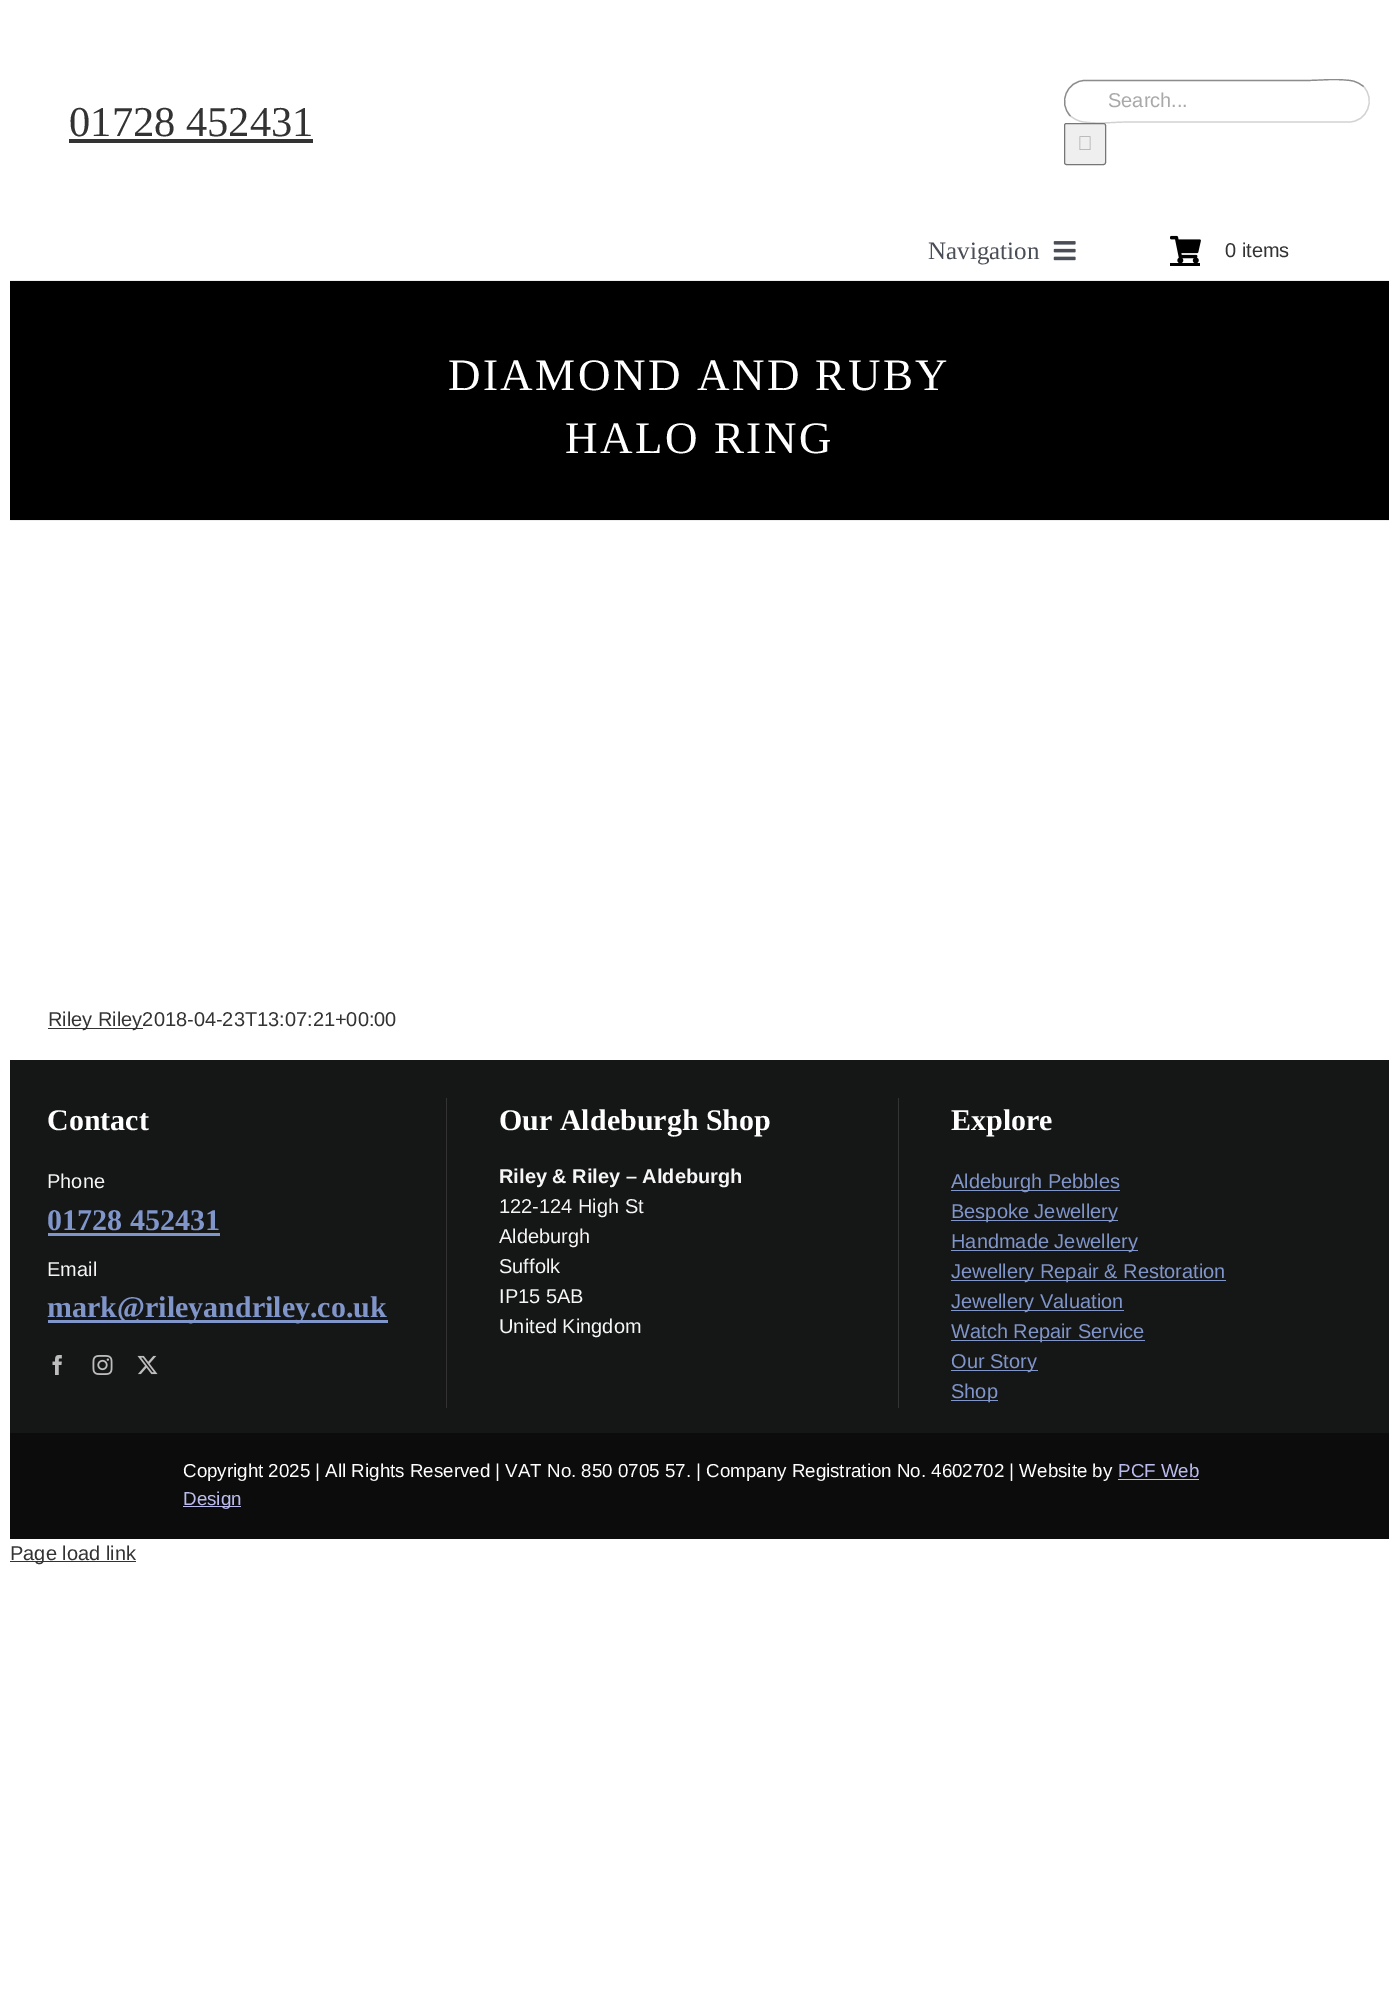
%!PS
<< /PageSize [1398 1998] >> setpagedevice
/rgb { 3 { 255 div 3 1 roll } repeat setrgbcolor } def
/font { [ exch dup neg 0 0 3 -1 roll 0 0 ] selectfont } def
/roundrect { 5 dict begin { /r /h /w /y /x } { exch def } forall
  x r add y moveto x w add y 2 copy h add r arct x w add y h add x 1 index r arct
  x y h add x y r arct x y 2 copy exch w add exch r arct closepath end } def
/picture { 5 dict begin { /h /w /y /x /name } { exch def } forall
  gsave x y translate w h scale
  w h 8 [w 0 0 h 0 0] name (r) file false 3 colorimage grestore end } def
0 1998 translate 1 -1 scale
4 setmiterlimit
255 255 255 rgb
0 0 1398 1998 rectfill
210 210 210 rgb
1.2 setlinewidth
1363.5 86.5 moveto 1376 99.5 1367 122 1349 122 curveto 1129 122 lineto 1113 122 1096.5 124.5 1081 121.5 curveto 1077 120.5 1073.5 118.5 1070.5 116 curveto stroke
140 140 140 rgb
1070.5 116 moveto 1057.5 103 1067 80.5 1085 80.5 curveto 1305 80.5 lineto 1321 80.5 1337 78 1353 81 curveto 1357 82 1360.5 84 1363.5 86.5 curveto stroke
239 239 239 rgb
1064.5 123.5 41 41 2 roundrect gsave fill grestore
118 118 118 rgb
1 setlinewidth
stroke
(img/1.rgb) 1079 136 12 14 picture
51 51 51 rgb
69 139 244 4 rectfill
(img/2.rgb) 1053 241 23 20 picture
(img/3.rgb) 1170 235 31 28 picture
[
  [1170 263 30 3 0 0 0]
  [10 281 1379 239 0 0 0]
  [10 280 1379 1 237 237 237]
  [10 520 1379 1 237 237 237]
  [48 1028 95 1 51 51 51]
  [10 1060 1379 373 21 22 22]
  [446 1098 1 310 51 51 51]
  [48 1233 172 3 128 149 201]
  [48 1320 340 3 128 149 201]
] { aload pop rgb rectfill } forall
(img/4.rgb) 52 1355 10 20 picture
(img/5.rgb) 92 1355 21 20 picture
(img/6.rgb) 137 1355 21 20 picture
[
  [898 1098 1 310 51 51 51]
  [951 1190 169 1 128 149 201]
  [951 1220 167 1 128 149 201]
  [951 1250 187 1 128 149 201]
  [951 1280 275 1 128 149 201]
  [951 1310 173 1 128 149 201]
  [951 1340 194 1 128 149 201]
  [951 1370 87 1 128 149 201]
  [951 1400 47 1 128 149 201]
  [10 1433 1379 106 12 12 12]
  [1118 1479 81 1 187 188 237]
  [183 1506 58 1 187 188 237]
  [10 1561 126 1 51 51 51]
] { aload pop rgb rectfill } forall
/LiberationSans-Regular 20 font
170 169 169 rgb
1108 107 moveto (Search...) show
/LiberationSerif-Regular 42.5 font
51 51 51 rgb
69 136 moveto (01728 452431) show
/LiberationSerif-Regular 25 font
74 78 87 rgb
928 259 moveto (Navigation) show
/Arimo-Regular 20 font
51 51 51 rgb
1225 257 moveto (0 items) show
/LiberationSerif-Regular 45 font
255 255 255 rgb
448 390 moveto 2.5 0 (DIAMOND AND RUBY) ashow
565 453 moveto 2.5 0 (HALO RING) ashow
/Arimo-Regular 20 font
51 51 51 rgb
48 1026 moveto (Riley Riley2018-04-23T13:07:21+00:00) show
/LiberationSerif-Bold 30 font
255 255 255 rgb
47 1130 moveto (Contact) show
/Arimo-Regular 20 font
246 246 246 rgb
47 1188 moveto (Phone) show
/LiberationSerif-Bold 30 font
128 149 201 rgb
47 1230 moveto (01728 452431) show
/Arimo-Regular 20 font
246 246 246 rgb
47 1276 moveto (Email) show
/LiberationSerif-Bold 30 font
128 149 201 rgb
47 1317 moveto (mark@rileyandriley.co.uk) show
255 255 255 rgb
499 1130 moveto (Our Aldeburgh Shop) show
/Arimo-Bold 20 font
246 246 246 rgb
499 1183 moveto (Riley & Riley – Aldeburgh) show
/Arimo-Regular 20 font
[
  [(122-124 High St) 499 1213]
  [(Aldeburgh) 499 1243]
  [(Suffolk) 499 1273]
  [(IP15 5AB) 499 1303]
  [(United Kingdom) 499 1333]
] { aload pop moveto show } forall
/LiberationSerif-Bold 30 font
255 255 255 rgb
951 1130 moveto (Explore) show
/Arimo-Regular 20 font
128 149 201 rgb
[
  [(Aldeburgh Pebbles) 951 1188]
  [(Bespoke Jewellery) 951 1218]
  [(Handmade Jewellery) 951 1248]
  [(Jewellery Repair & Restoration) 951 1278]
  [(Jewellery Valuation) 951 1308]
  [(Watch Repair Service) 951 1338]
  [(Our Story) 951 1368]
  [(Shop) 951 1398]
] { aload pop moveto show } forall
/Arimo-Regular 18.75 font
255 255 255 rgb
183 1477 moveto (Copyright 2025 | All Rights Reserved | VAT No. 850 0705 57. | Company Registration No. 4602702 | Website by) show
187 188 237 rgb
1118 1477 moveto (PCF Web) show
183 1505 moveto (Design) show
/Arimo-Regular 20 font
51 51 51 rgb
10 1560 moveto (Page load link) show
showpage
